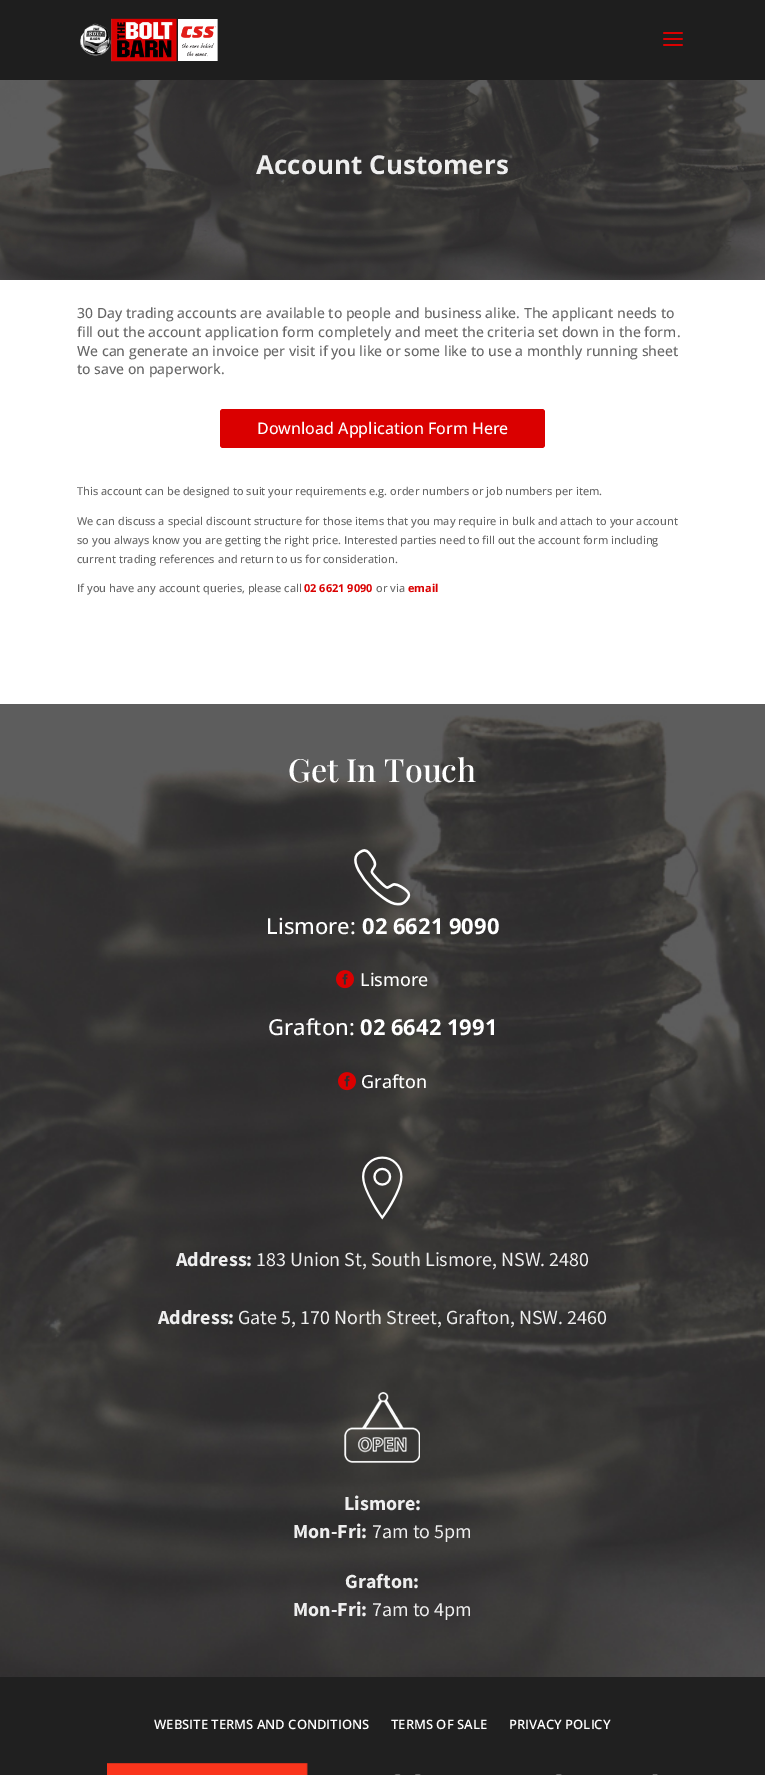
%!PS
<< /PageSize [765 1775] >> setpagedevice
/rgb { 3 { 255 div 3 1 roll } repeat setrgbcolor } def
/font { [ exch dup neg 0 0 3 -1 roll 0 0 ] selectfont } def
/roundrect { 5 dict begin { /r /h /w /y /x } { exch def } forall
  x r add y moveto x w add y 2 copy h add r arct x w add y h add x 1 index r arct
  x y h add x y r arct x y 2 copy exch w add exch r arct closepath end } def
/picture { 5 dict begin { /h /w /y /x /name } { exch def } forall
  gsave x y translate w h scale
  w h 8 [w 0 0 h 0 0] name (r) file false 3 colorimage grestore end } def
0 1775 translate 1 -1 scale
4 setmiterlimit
255 255 255 rgb
0 0 765 1775 rectfill
30 30 30 rgb
0 0 765 80 rectfill
(img/1.rgb) 80 18 138 44 picture
(img/2.rgb) 663 32 20 14 picture
(img/3.rgb) 0 80 765 200 picture
218 0 0 rgb
220 409 325 39 3 roundrect fill
(img/4.rgb) 0 704 765 973 picture
(img/5.rgb) 354 849 57 57 picture
(img/6.rgb) 336 970 18 19 picture
(img/7.rgb) 338 1072 18 19 picture
(img/8.rgb) 362 1156 41 64 picture
(img/9.rgb) 344 1392 76 71 picture
32 32 32 rgb
0 1677 765 98 rectfill
(img/10.rgb) 107 1763 551 12 picture
/OpenSans-Bold 26 font
238 238 238 rgb
256 174 moveto (Account Customers) show
/OpenSans-Medium 14 font
102 102 102 rgb
[
  [(30 Day trading accounts are available to people and business alike. The applicant needs to) 77 318]
  [(fill out the account application form completely and meet the criteria set down in the form.) 77 337]
  [(We can generate an invoice per visit if you like or some like to use a monthly running sheet) 77 356]
  [(to save on paperwork.) 77 374]
] { aload pop moveto show } forall
/OpenSans-Medium 16 font
255 255 255 rgb
257 434 moveto (Download Application Form Here) show
/OpenSans-Medium 11 font
102 102 102 rgb
[
  [(This account can be designed to suit your requirements e.g. order numbers or job numbers per item.) 77 495]
  [(We can discuss a special discount structure for those items that you may require in bulk and attach to your account) 77 525]
  [(so you always know you are getting the right price. Interested parties need to fill out the account form including) 77 544]
  [(current trading references and return to us for consideration.) 77 563]
  [(If you have any account queries, please call) 77 592]
] { aload pop moveto show } forall
/OpenSans-Bold 11 font
218 0 0 rgb
304 592 moveto (02 6621 9090) show
/OpenSans-Medium 11 font
102 102 102 rgb
376 592 moveto (or via) show
/OpenSans-Bold 11 font
218 0 0 rgb
408 592 moveto (email) show
/PlayfairDisplay-Medium 32 font
255 255 255 rgb
288 782 moveto (Get In Touch) show
/OpenSans-Medium 22 font
266 934 moveto (Lismore:) show
/OpenSans-Bold 22 font
362 934 moveto (02 6621 9090) show
/OpenSans-Medium 18 font
360 986 moveto (Lismore) show
/OpenSans-Medium 22 font
268 1035 moveto (Grafton:) show
/OpenSans-Bold 22 font
360 1035 moveto (02 6642 1991) show
/OpenSans-Medium 18 font
361 1088 moveto (Grafton) show
/SourceSansPro-Bold 20 font
238 238 238 rgb
176 1266 moveto (Address:) show
/SourceSansPro-Regular 20 font
256 1266 moveto (183 Union St, South Lismore, NSW. 2480) show
/SourceSansPro-Bold 20 font
158 1324 moveto (Address:) show
/SourceSansPro-Regular 20 font
238 1324 moveto (Gate 5, 170 North Street, Grafton, NSW. 2460) show
/SourceSansPro-Bold 20 font
344 1510 moveto (Lismore:) show
293 1538 moveto (Mon-Fri:) show
/SourceSansPro-Regular 20 font
372 1538 moveto (7am to 5pm) show
/SourceSansPro-Bold 20 font
345 1588 moveto (Grafton:) show
293 1616 moveto (Mon-Fri:) show
/SourceSansPro-Regular 20 font
372 1616 moveto (7am to 4pm) show
/OpenSans-SemiBold 13 font
255 255 255 rgb
[
  [(WEBSITE TERMS AND CONDITIONS) 154 1729]
  [(TERMS OF SALE) 391 1729]
  [(PRIVACY POLICY) 509 1729]
] { aload pop moveto show } forall
showpage
